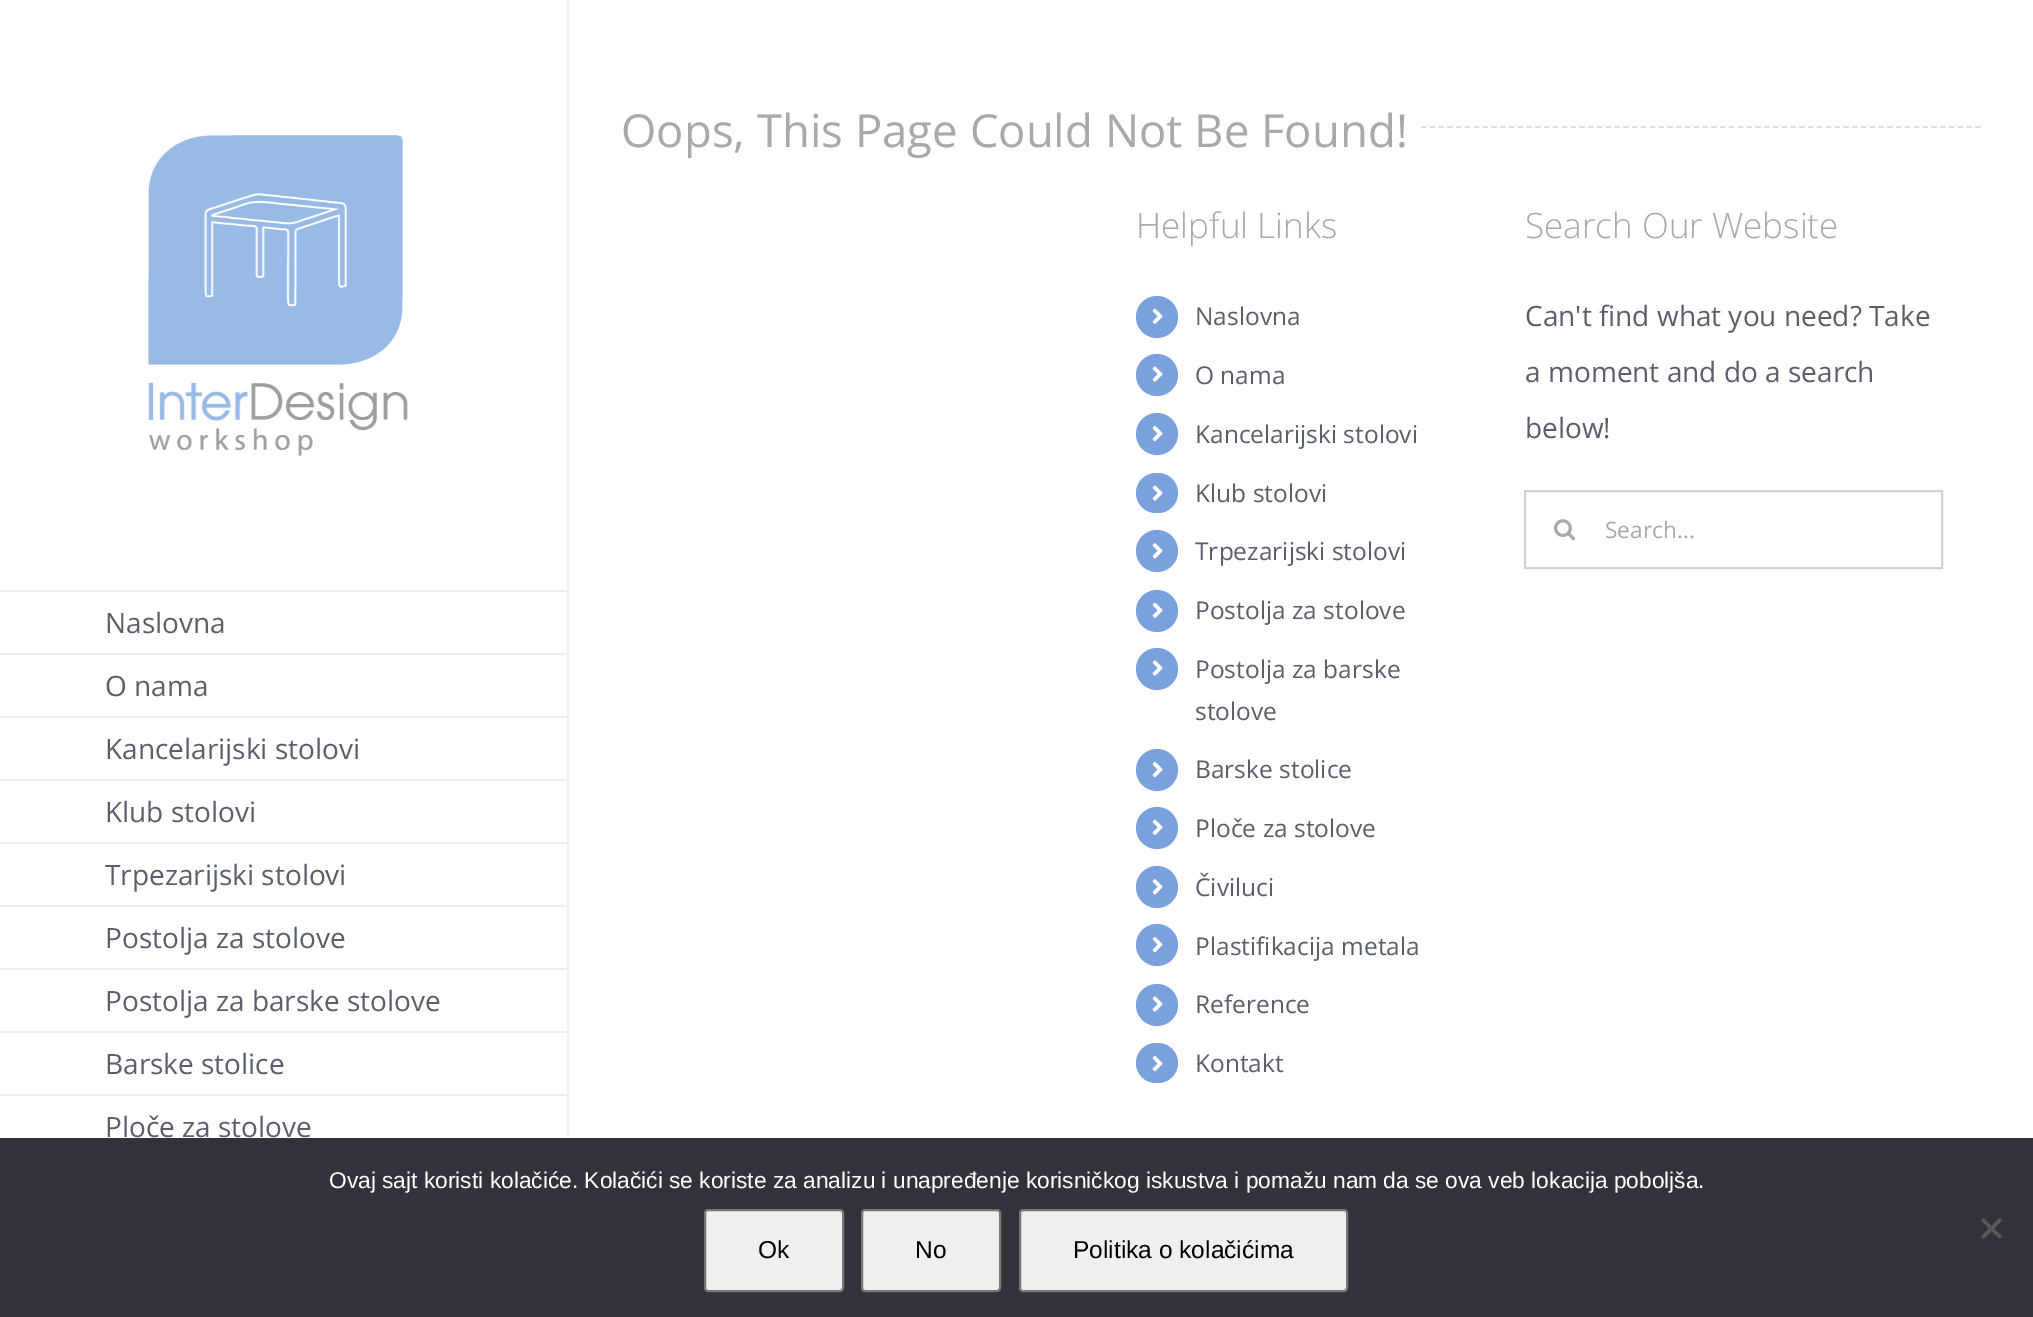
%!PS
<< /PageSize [2033 1317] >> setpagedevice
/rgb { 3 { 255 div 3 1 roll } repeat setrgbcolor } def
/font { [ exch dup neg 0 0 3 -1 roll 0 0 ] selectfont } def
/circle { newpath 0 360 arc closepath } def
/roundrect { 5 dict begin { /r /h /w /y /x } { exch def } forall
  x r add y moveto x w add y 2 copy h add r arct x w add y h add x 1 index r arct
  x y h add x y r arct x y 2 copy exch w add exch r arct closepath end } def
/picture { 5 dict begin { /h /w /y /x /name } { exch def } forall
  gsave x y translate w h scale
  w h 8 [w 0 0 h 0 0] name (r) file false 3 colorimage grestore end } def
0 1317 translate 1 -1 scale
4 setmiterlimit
255 255 255 rgb
0 0 2033 1317 rectfill
(img/1.rgb) 148 135 260 321 picture
[
  [567 0 2 1138 241 240 236]
  [0 590 569 2 241 240 236]
  [0 653 569 2 241 240 236]
  [0 716 569 2 241 240 236]
  [0 779 569 2 241 240 236]
  [0 842 569 2 241 240 236]
  [0 905 569 2 241 240 236]
  [0 968 569 2 241 240 236]
  [0 1031 569 2 241 240 236]
  [0 1094 569 2 241 240 236]
] { aload pop rgb rectfill } forall
224 222 222 rgb
1.8 setlinewidth
[5.25 3.55] 0 setdash
1421 127 moveto 1981 127 lineto stroke
122 160 221 rgb
1157 317 21 circle fill
(img/2.rgb) 1152 308 11 16 picture
1157 375 21 circle fill
(img/3.rgb) 1152 366 11 16 picture
1157 434 21 circle fill
(img/4.rgb) 1152 426 11 16 picture
1136 473 42 40 20 roundrect fill
(img/3.rgb) 1152 485 11 16 picture
1157 551 21 circle fill
(img/5.rgb) 1152 543 11 16 picture
1157 611 21 circle fill
(img/2.rgb) 1152 602 11 16 picture
1157 669 21 circle fill
(img/3.rgb) 1152 660 11 16 picture
1157 770 21 circle fill
(img/4.rgb) 1152 762 11 16 picture
1157 828 21 circle fill
(img/2.rgb) 1152 819 11 16 picture
1157 887 21 circle fill
(img/5.rgb) 1152 879 11 16 picture
1157 945 21 circle fill
(img/4.rgb) 1152 937 11 16 picture
1157 1005 21 circle fill
(img/3.rgb) 1152 996 11 16 picture
1136 1043 42 40 20 roundrect fill
(img/4.rgb) 1152 1056 11 16 picture
210 210 210 rgb
2 setlinewidth
[] 0 setdash
1525 491 417 77 rectstroke
(img/6.rgb) 1554 519 22 22 picture
50 50 58 rgb
0 1138 2033 179 rectfill
89 89 93 rgb
1999.5 1218 moveto 2002 1220.5 lineto 1983.5 1239 lineto 1981 1236.5 lineto closepath fill
1981 1220.5 moveto 1983.5 1218 lineto 2002 1236.5 lineto 1999.5 1239 lineto closepath fill
239 239 239 rgb
705 1210 138 81 3 roundrect gsave fill grestore
118 118 118 rgb
stroke
239 239 239 rgb
862 1210 138 81 3 roundrect gsave fill grestore
118 118 118 rgb
stroke
239 239 239 rgb
1020 1210 327 81 3 roundrect gsave fill grestore
118 118 118 rgb
stroke
/OpenSans-Regular 28 font
89 95 107 rgb
[
  [(Naslovna) 105 633]
  [(O nama) 105 696]
  [(Kancelarijski stolovi) 105 759]
  [(Klub stolovi) 105 822]
  [(Trpezarijski stolovi) 105 885]
  [(Postolja za stolove) 105 948]
  [(Postolja za barske stolove) 105 1011]
  [(Barske stolice) 105 1074]
  [(Ploče za stolove) 105 1137]
] { aload pop moveto show } forall
/OpenSans-Regular 45.5 font
169 169 169 rgb
621 147 moveto (Oops, This Page Could Not Be Found!) show
/OpenSans-Light 35 font
1136 238 moveto (Helpful Links) show
/OpenSans-Regular 24.5 font
89 95 107 rgb
[
  [(Naslovna) 1195 325]
  [(O nama) 1195 384]
  [(Kancelarijski stolovi) 1195 443]
  [(Klub stolovi) 1195 502]
  [(Trpezarijski stolovi) 1195 560]
  [(Postolja za stolove) 1195 619]
  [(Postolja za barske) 1195 678]
  [(stolove) 1195 720]
  [(Barske stolice) 1195 778]
  [(Ploče za stolove) 1195 837]
  [(Čiviluci) 1195 896]
  [(Plastifikacija metala) 1195 955]
  [(Reference) 1195 1013]
  [(Kontakt) 1195 1072]
] { aload pop moveto show } forall
/OpenSans-Light 35 font
169 169 169 rgb
1525 238 moveto (Search Our Website) show
/OpenSans-Regular 28 font
89 95 107 rgb
[
  [(Can't find what you need? Take) 1525 326]
  [(a moment and do a search) 1525 382]
  [(below!) 1525 438]
] { aload pop moveto show } forall
/OpenSans-Regular 22.75 font
169 169 169 rgb
1605 538 moveto (Search...) show
/LiberationSans-Regular 22.75 font
255 255 255 rgb
329 1188 moveto (Ovaj sajt koristi kolačiće. Kolačići se koriste za analizu i unapređenje korisničkog iskustva i pomažu nam da se ova veb lokacija poboljša.) show
/LiberationSans-Regular 24.5 font
0 0 0 rgb
[
  [(Ok) 758 1258]
  [(No) 915 1258]
  [(Politika o kolačićima) 1073 1258]
] { aload pop moveto show } forall
showpage
